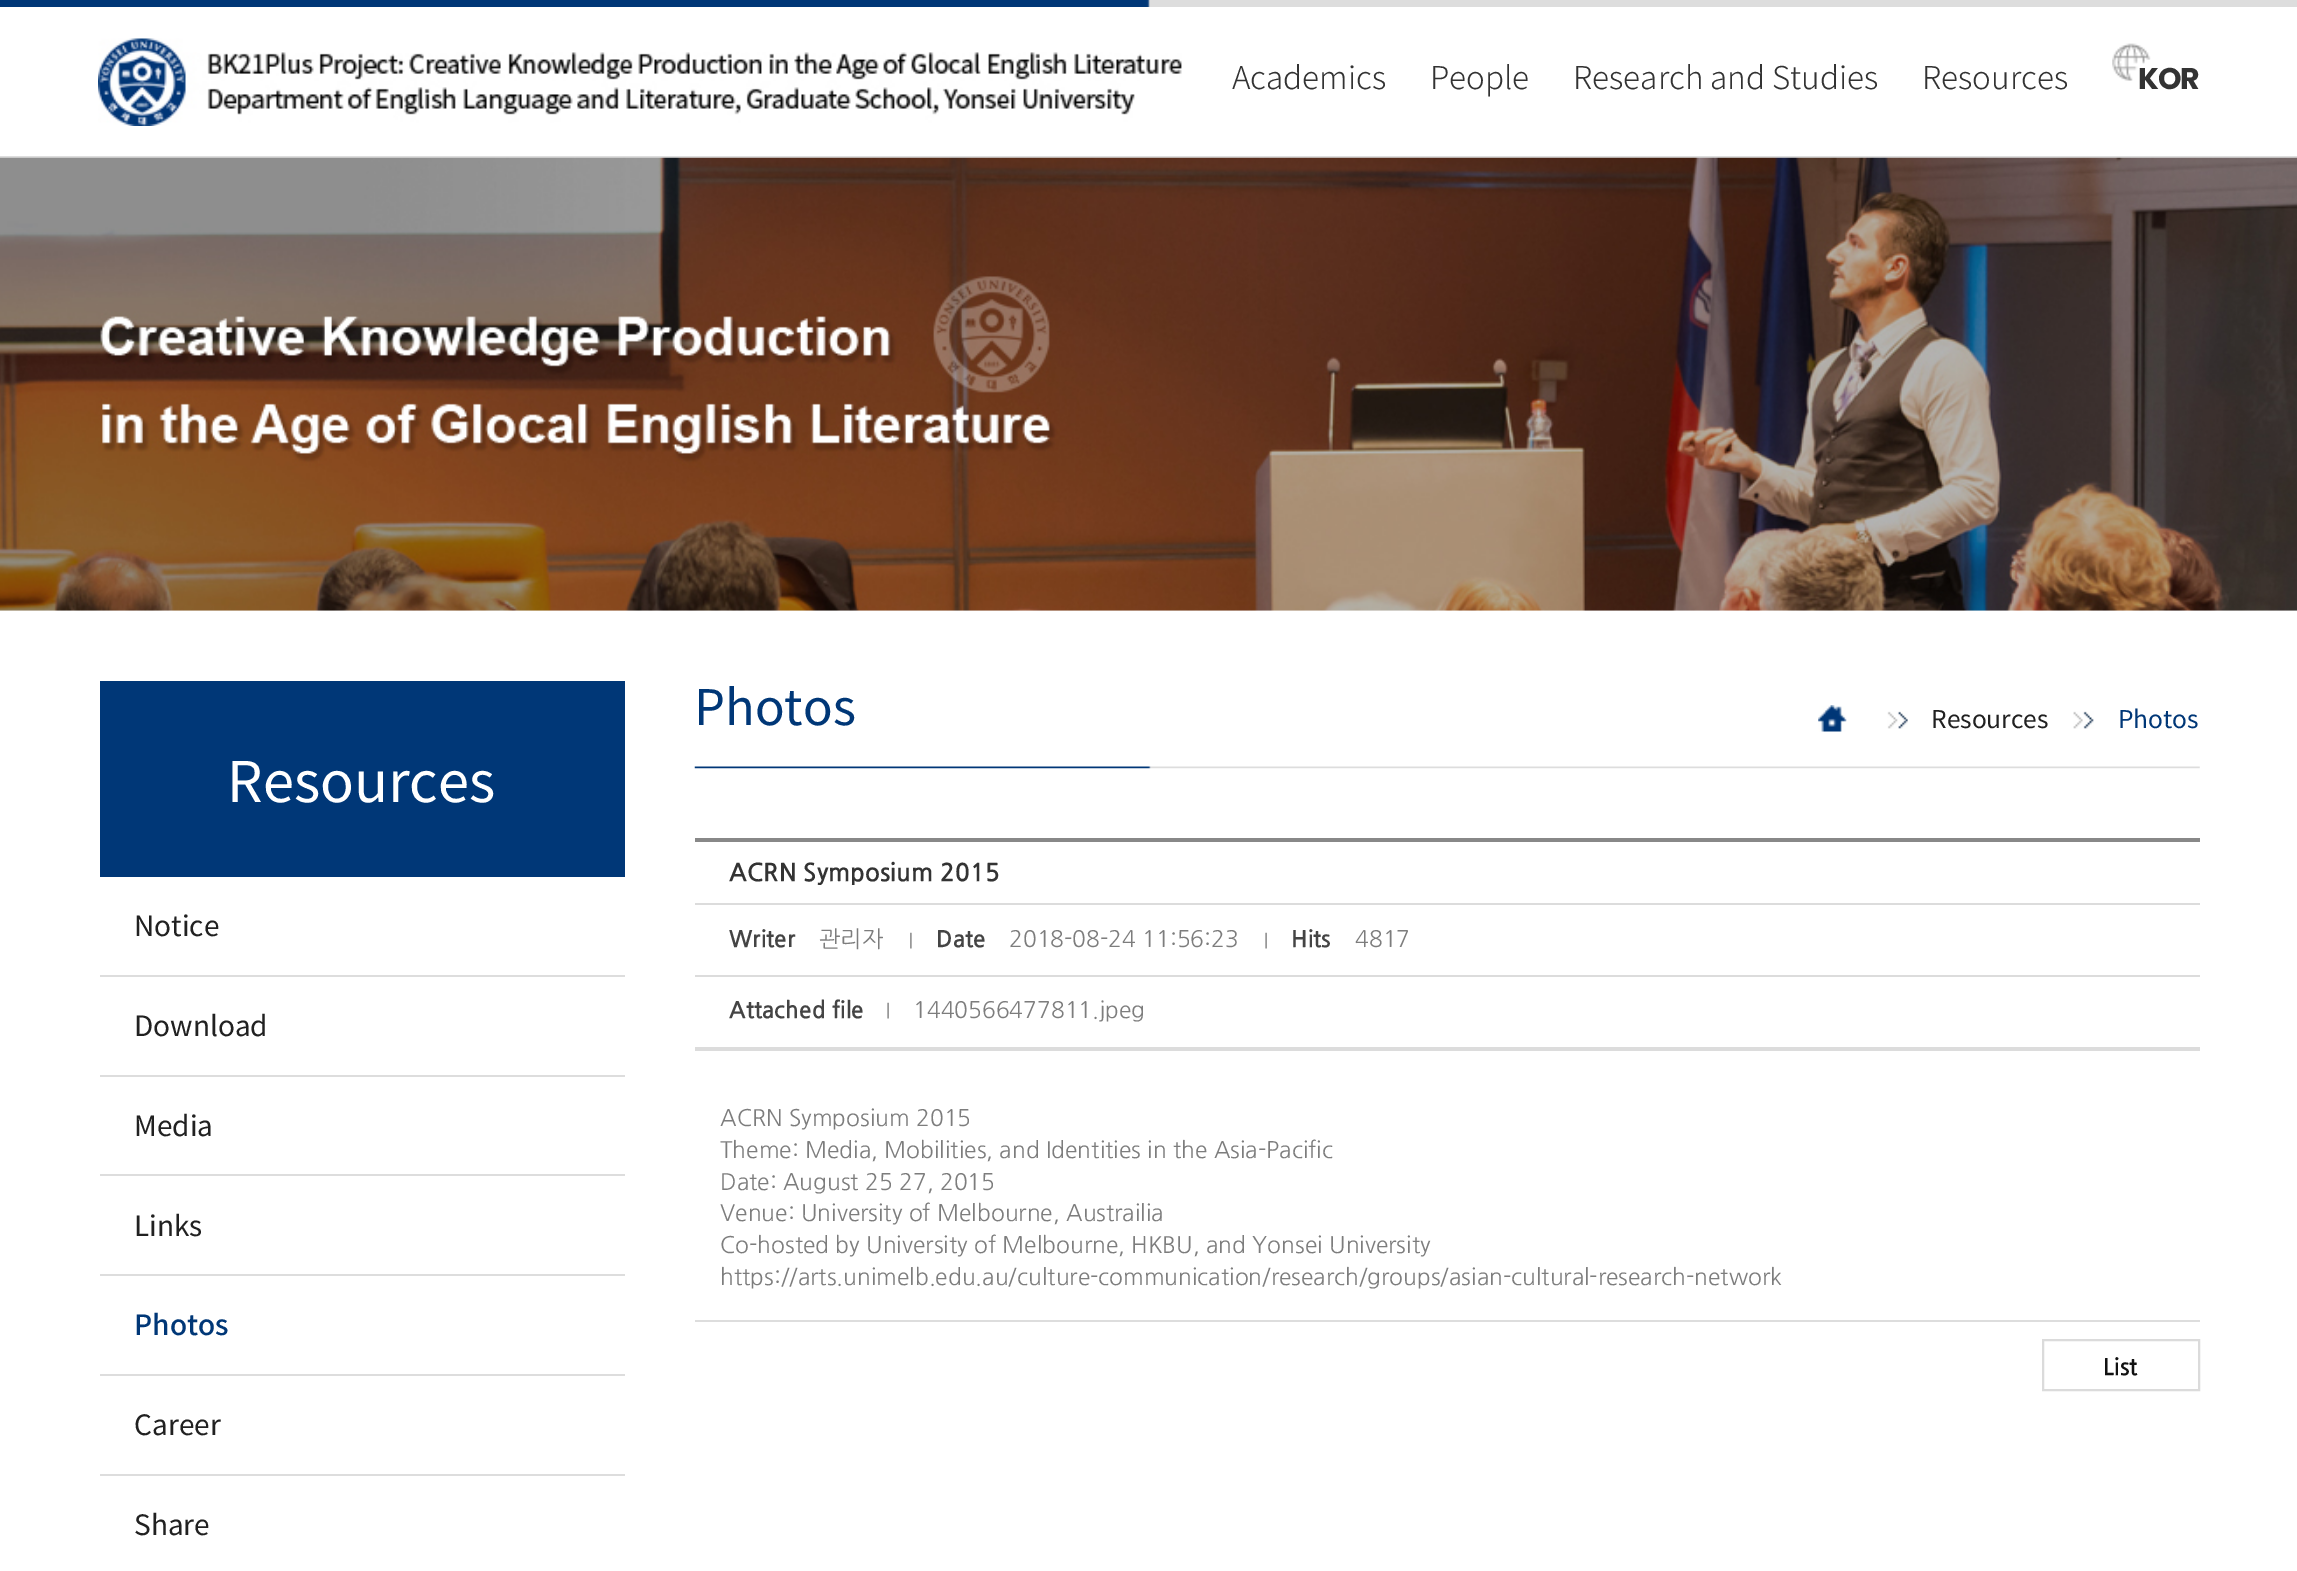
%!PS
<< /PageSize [2297 1571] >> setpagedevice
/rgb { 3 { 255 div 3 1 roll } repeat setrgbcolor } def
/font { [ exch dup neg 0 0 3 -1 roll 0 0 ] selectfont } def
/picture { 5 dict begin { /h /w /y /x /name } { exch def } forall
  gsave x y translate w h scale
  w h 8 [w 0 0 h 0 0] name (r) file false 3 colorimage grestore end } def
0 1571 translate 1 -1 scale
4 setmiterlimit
255 255 255 rgb
0 0 2297 1571 rectfill
(img/1.rgb) 0 0 2297 7 picture
221 221 221 rgb
0 156 2297 2 rectfill
(img/2.rgb) 98 38 1084 88 picture
(img/3.rgb) 2112 43 39 38 picture
(img/4.rgb) 0 157 2297 454 picture
[
  [100 681 525 196 0 55 119]
  [100 975 525 2 221 221 221]
  [100 1075 525 2 221 221 221]
  [100 1174 525 2 221 221 221]
  [100 1274 525 2 221 221 221]
  [100 1374 525 2 221 221 221]
  [100 1474 525 2 221 221 221]
] { aload pop rgb rectfill } forall
(img/5.rgb) 694 766 1506 3 picture
(img/6.rgb) 1818 705 29 27 picture
(img/7.rgb) 1887 711 21 18 picture
(img/8.rgb) 2073 711 21 18 picture
136 136 136 rgb
695 838 1505 4 rectfill
220 220 220 rgb
695 903 1505 2 rectfill
(img/9.rgb) 910 932 2 17 picture
(img/10.rgb) 1265 932 2 17 picture
695 975 1505 2 rectfill
(img/10.rgb) 887 1002 2 17 picture
695 1047 1505 4 rectfill
221 221 221 rgb
695 1320 1505 2 rectfill
219 219 219 rgb
2 setlinewidth
2043 1340 156 50 rectstroke
/NotoSansKR-Light 31.5 font
51 51 51 rgb
[
  [(Academics) 1232 89]
  [(People) 1430 89]
  [(Research and Studies) 1573 89]
  [(Resources) 1922 89]
] { aload pop moveto show } forall
/Poppins-Bold 30 font
2138 89 moveto -1 0 (KOR) ashow
/NotoSansKR-Regular 56 font
255 255 255 rgb
227 802 moveto (Resources) show
/NotoSansKR-Regular 28 font
33 33 33 rgb
[
  [(Notice) 134 936]
  [(Download) 134 1036]
  [(Media) 134 1136]
  [(Links) 134 1236]
] { aload pop moveto show } forall
/NotoSansKR-Medium 28 font
0 55 119 rgb
134 1335 moveto (Photos) show
/NotoSansKR-Regular 28 font
33 33 33 rgb
134 1435 moveto (Career) show
134 1535 moveto (Share) show
/NotoSansKR-Regular 49 font
0 55 119 rgb
694 725 moveto (Photos) show
/NotoSansKR-Regular 24.5 font
33 33 33 rgb
1931 728 moveto (Resources) show
0 55 119 rgb
2118 728 moveto (Photos) show
/NanumGothic-Bold 24.5 font
51 51 51 rgb
729 880 moveto (ACRN Symposium 2015) show
/NanumGothic-Bold 22.75 font
68 68 68 rgb
729 946 moveto (Writer) show
/NanumGothic-Regular 22.75 font
125 125 125 rgb
819 946 moveto (관리자) show
/NanumGothic-Bold 22.75 font
68 68 68 rgb
936 946 moveto (Date) show
/NanumGothic-Regular 22.75 font
125 125 125 rgb
1009 946 moveto (2018-08-24 11:56:23) show
/NanumGothic-Bold 22.75 font
68 68 68 rgb
1291 946 moveto (Hits) show
/NanumGothic-Regular 22.75 font
125 125 125 rgb
1355 946 moveto (4817) show
/NanumGothic-Bold 22.75 font
68 68 68 rgb
729 1017 moveto (Attached file) show
/NanumGothic-Regular 22.75 font
125 125 125 rgb
[
  [(1440566477811.jpeg) 913 1017]
  [(ACRN Symposium 2015) 720 1125]
  [(Theme: Media, Mobilities, and Identities in the Asia-Pacific) 720 1157]
  [(Date: August 25 27, 2015) 720 1189]
  [(Venue: University of Melbourne, Austrailia) 720 1220]
  [(Co-hosted by University of Melbourne, HKBU, and Yonsei University) 720 1252]
  [(https://arts.unimelb.edu.au/culture-communication/research/groups/asian-cultural-research-network) 720 1284]
] { aload pop moveto show } forall
/NanumGothic-Bold 22.75 font
17 17 17 rgb
2103 1374 moveto (List) show
showpage
